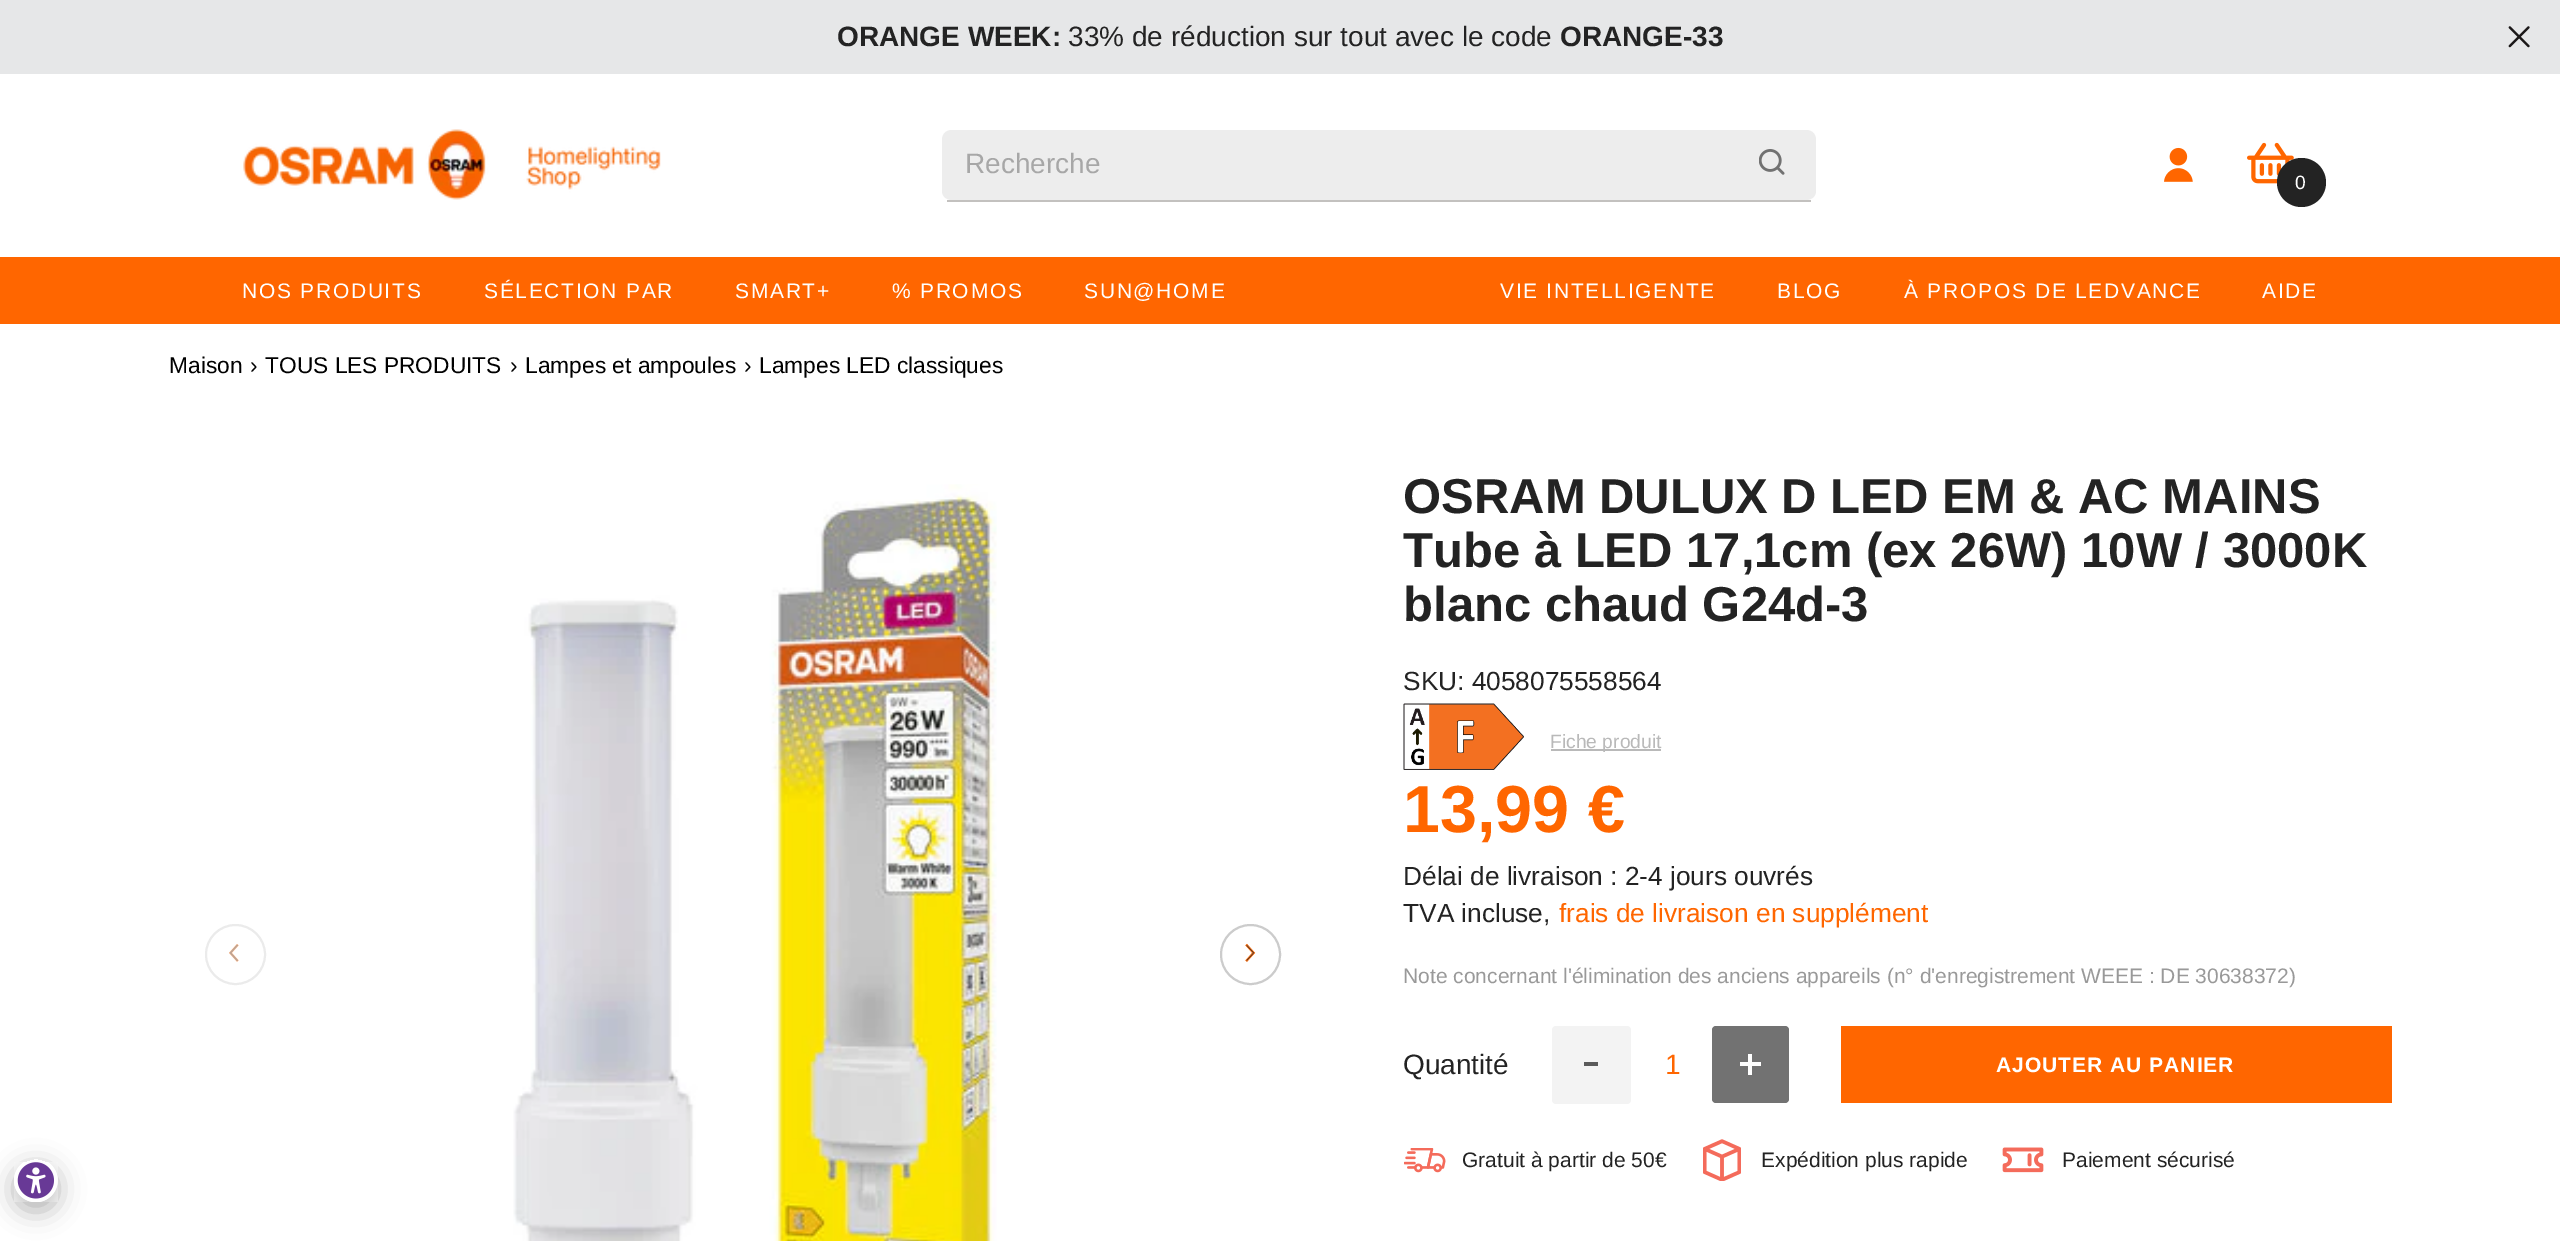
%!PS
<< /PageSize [2560 1241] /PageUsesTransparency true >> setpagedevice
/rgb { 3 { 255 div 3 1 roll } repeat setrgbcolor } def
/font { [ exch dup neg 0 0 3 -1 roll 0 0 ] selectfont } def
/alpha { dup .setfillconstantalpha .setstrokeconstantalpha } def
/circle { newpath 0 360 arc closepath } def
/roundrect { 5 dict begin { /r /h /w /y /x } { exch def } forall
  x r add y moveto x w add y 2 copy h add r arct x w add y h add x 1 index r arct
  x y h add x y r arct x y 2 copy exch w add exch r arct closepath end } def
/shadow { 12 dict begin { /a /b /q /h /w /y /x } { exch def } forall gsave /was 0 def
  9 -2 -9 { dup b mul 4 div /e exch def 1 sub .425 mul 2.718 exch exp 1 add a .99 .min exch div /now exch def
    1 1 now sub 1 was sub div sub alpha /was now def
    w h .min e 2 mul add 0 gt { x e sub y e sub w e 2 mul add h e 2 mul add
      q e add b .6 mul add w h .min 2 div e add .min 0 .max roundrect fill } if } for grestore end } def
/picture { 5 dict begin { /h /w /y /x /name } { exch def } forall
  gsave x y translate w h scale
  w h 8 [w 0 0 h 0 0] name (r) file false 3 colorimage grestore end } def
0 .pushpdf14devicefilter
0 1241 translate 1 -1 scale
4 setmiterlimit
255 255 255 rgb
0 0 2560 1241 rectfill
230 231 232 rgb
0 0 2560 74 rectfill
(img/1.rgb) 2508 26 22 22 picture
(img/2.rgb) 243 129 418 71 picture
237 237 237 rgb
952 130 moveto 1806 130 lineto 1812 130 1816 134 1816 140 curveto 1816 191 lineto 1816 196 1812 200 1806 200 curveto 952 200 lineto 946 200 942 196 942 191 curveto 942 140 lineto 942 134 946 130 952 130 curveto closepath fill
195 193 191 rgb
947 200 864 2 rectfill
(img/3.rgb) 1759 149 26 26 picture
(img/4.rgb) 2164 147 29 35 picture
(img/5.rgb) 2247 142 47 42 picture
35 35 35 rgb
2301.5 182.5 24.5 circle fill
255 102 0 rgb
0 257 2560 67 rectfill
235 235 235 rgb
2 setlinewidth
235.5 954.5 29.5 circle stroke
(img/6.rgb) 229 944 10 18 picture
(img/7.rgb) 513 484 484 757 picture
204 204 204 rgb
1250.5 954.5 29.5 circle stroke
(img/8.rgb) 1245 943 11 19 picture
(img/9.rgb) 1403 703 121 67 picture
185 185 185 rgb
1551 749 110 2 rectfill
243 243 243 rgb
1552 1026 79 78 4 roundrect fill
90 90 90 rgb
1584 1062 14 4 rectfill
114 114 114 rgb
1712 1026 77 77 4 roundrect fill
[
  [1740 1062 21 4 255 255 255]
  [1748 1054 4 21 255 255 255]
  [1841 1026 551 77 255 102 0]
] { aload pop rgb rectfill } forall
(img/10.rgb) 1404 1148 42 25 picture
(img/11.rgb) 1703 1139 38 42 picture
(img/12.rgb) 2002 1147 42 26 picture
gsave
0 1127 moveto 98 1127 lineto 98 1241 lineto 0 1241 lineto closepath 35.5 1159 moveto 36.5 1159 lineto 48.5 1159 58 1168.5 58 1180.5 curveto 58 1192.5 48.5 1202 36.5 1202 curveto 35.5 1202 lineto 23.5 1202 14 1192.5 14 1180.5 curveto 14 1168.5 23.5 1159 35.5 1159 curveto closepath eoclip newpath
0 0 0 rgb
14 1167 44 44 22 13 0.3 shadow
grestore
(img/13.rgb) 14 1162 44 40 picture
/LiberationSans-Bold 28 font
35 35 35 rgb
837 46 moveto (ORANGE WEEK:) show
/LiberationSans-Regular 28 font
1068 46 moveto (33% de réduction sur tout avec le code) show
/LiberationSans-Bold 28 font
1560 46 moveto (ORANGE-33) show
/LiberationSans-Regular 28 font
167 167 167 rgb
965 173 moveto (Recherche) show
/LiberationSans-Regular 19.25 font
255 255 255 rgb
2295 189 moveto (0) show
/LiberationSans-Regular 21 font
242 298 moveto 1.7 0 (NOS PRODUITS) ashow
484 298 moveto 1.7 0 (SÉLECTION PAR) ashow
735 298 moveto 1.7 0 (SMART+) ashow
892 298 moveto 1.7 0 (% PROMOS) ashow
1084 298 moveto 1.7 0 (SUN@HOME) ashow
1500 298 moveto 1.7 0 (VIE INTELLIGENTE) ashow
1777 298 moveto 1.7 0 (BLOG) ashow
1904 298 moveto 1.7 0 (À PROPOS DE LEDVANCE) ashow
2262 298 moveto 1.7 0 (AIDE) ashow
/LiberationSans-Regular 22.75 font
0 0 0 rgb
[
  [(Maison) 169 373]
  [(›) 250 373]
  [(TOUS LES PRODUITS) 265 373]
  [(›) 510 373]
  [(Lampes et ampoules) 525 373]
  [(›) 744 373]
  [(Lampes LED classiques) 759 373]
] { aload pop moveto show } forall
/LiberationSans-Bold 49 font
35 35 35 rgb
[
  [(OSRAM DULUX D LED EM & AC MAINS) 1403 513]
  [(Tube à LED 17,1cm \(ex 26W\) 10W / 3000K) 1403 567]
  [(blanc chaud G24d-3) 1403 621]
] { aload pop moveto show } forall
/LiberationSans-Regular 26.25 font
1403 690 moveto (SKU: 4058075558564) show
/LiberationSans-Regular 19.25 font
185 185 185 rgb
1550 748 moveto (Fiche produit) show
/LiberationSans-Bold 66.5 font
255 102 0 rgb
1403 832 moveto (13,99 €) show
/LiberationSans-Regular 26.25 font
35 35 35 rgb
1403 885 moveto (Délai de livraison : 2-4 jours ouvrés) show
1403 922 moveto (TVA incluse,) show
255 102 0 rgb
1559 922 moveto (frais de livraison en supplément) show
/LiberationSans-Regular 21 font
153 153 153 rgb
1403 983 moveto (Note concernant l'élimination des anciens appareils \(n° d'enregistrement WEEE : DE 30638372\)) show
/LiberationSans-Regular 28 font
35 35 35 rgb
1403 1074 moveto (Quantité) show
255 102 0 rgb
1665 1074 moveto (1) show
/LiberationSans-Bold 21 font
255 255 255 rgb
1996 1072 moveto 1 0 (AJOUTER AU PANIER) ashow
/LiberationSans-Regular 21 font
35 35 35 rgb
[
  [(Gratuit à partir de 50€) 1462 1167]
  [(Expédition plus rapide) 1761 1167]
  [(Paiement sécurisé) 2062 1167]
] { aload pop moveto show } forall
.poppdf14devicefilter showpage
